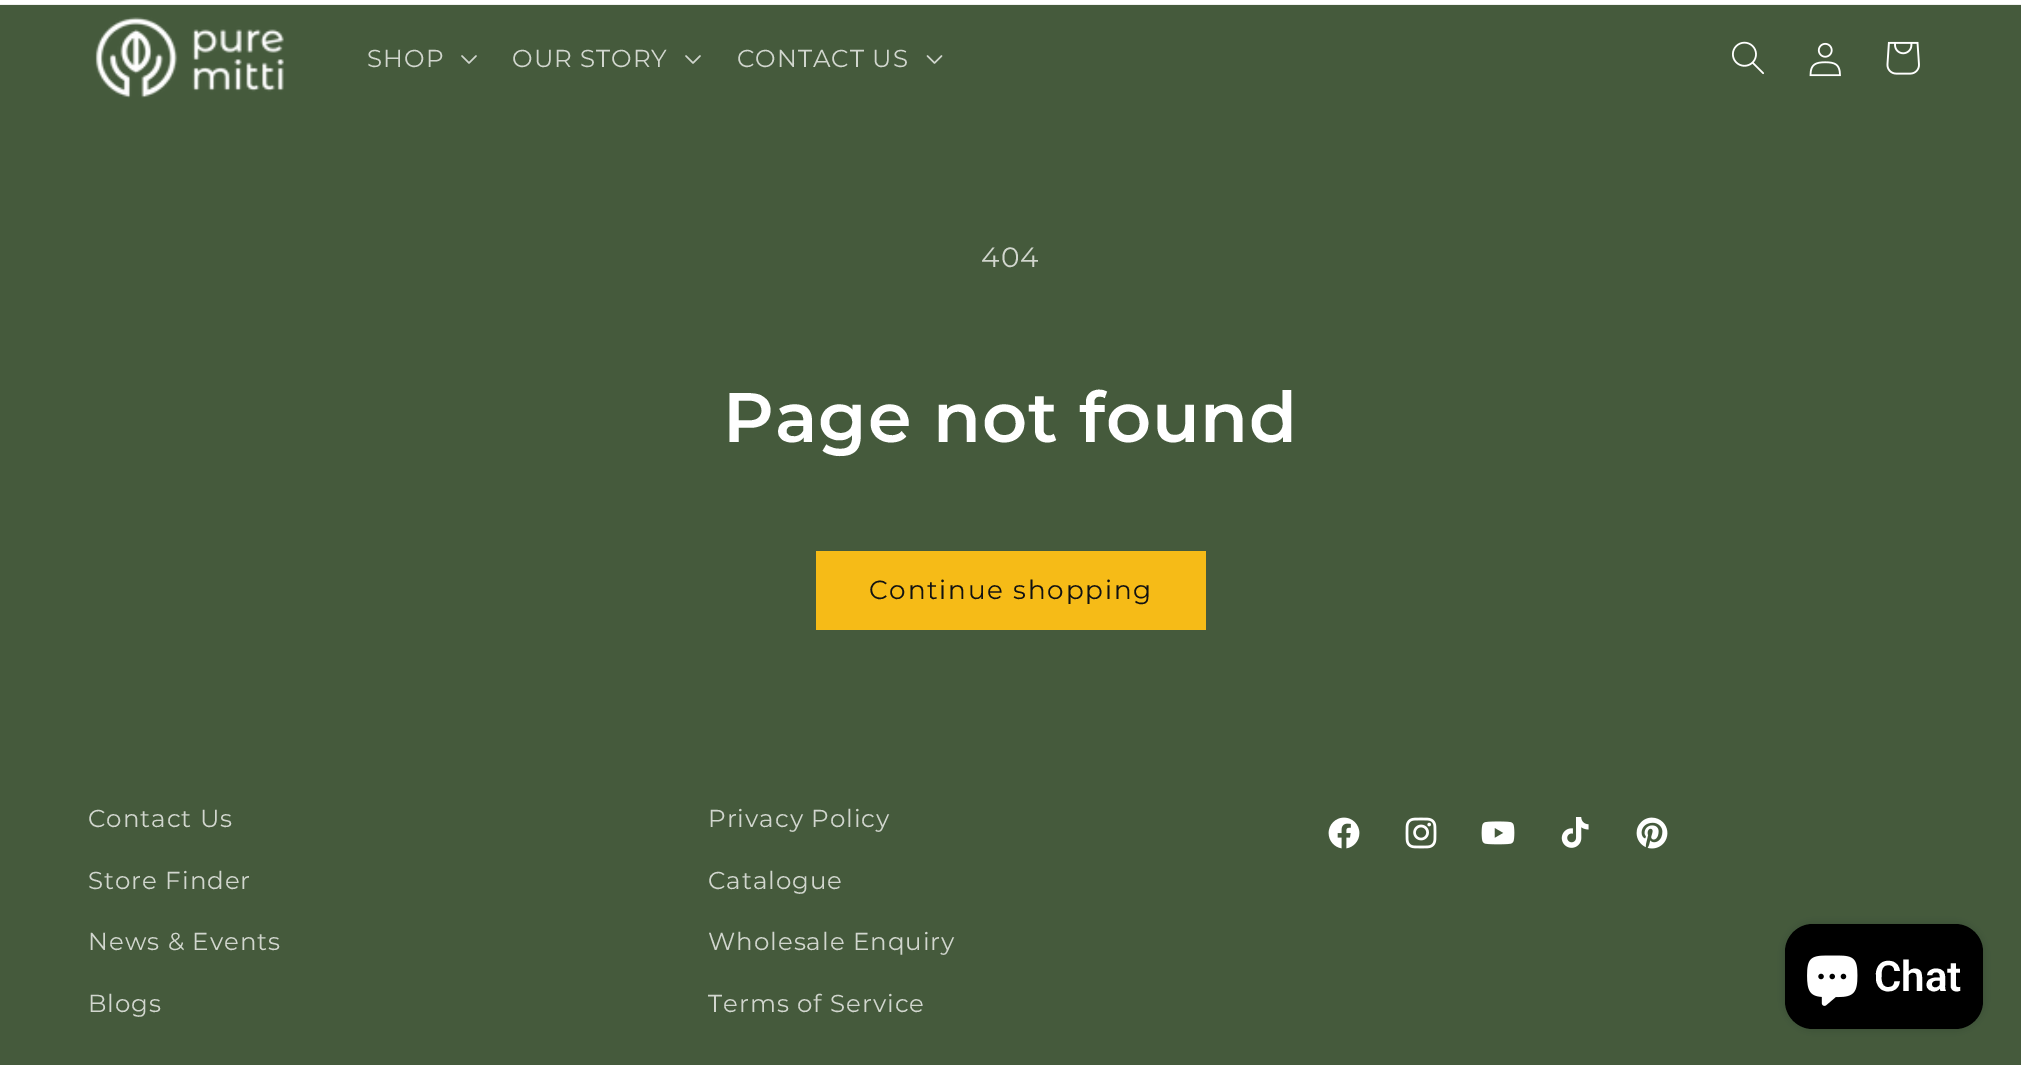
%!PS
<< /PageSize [2021 1065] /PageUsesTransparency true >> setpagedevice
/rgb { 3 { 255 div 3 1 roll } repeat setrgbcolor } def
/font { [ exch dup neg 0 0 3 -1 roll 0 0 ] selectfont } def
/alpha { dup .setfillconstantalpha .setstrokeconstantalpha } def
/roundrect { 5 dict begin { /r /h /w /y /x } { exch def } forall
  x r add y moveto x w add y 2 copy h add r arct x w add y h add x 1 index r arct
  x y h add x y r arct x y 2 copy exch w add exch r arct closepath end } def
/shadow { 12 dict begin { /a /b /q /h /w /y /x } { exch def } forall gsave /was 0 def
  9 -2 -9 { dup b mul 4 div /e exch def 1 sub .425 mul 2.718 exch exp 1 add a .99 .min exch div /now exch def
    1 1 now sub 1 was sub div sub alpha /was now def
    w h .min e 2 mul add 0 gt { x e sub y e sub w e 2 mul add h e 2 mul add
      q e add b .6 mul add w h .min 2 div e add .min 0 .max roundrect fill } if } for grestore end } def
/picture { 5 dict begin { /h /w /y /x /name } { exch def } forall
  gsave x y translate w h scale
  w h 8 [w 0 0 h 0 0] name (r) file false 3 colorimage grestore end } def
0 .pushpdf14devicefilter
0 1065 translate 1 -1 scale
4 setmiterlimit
69 90 60 rgb
0 0 2021 1065 rectfill
255 255 255 rgb
0 0 2021 4 rectfill
239 240 238 rgb
0 4 2021 1 rectfill
(img/1.rgb) 95 17 189 81 picture
(img/2.rgb) 461 55 16 9 picture
(img/2.rgb) 685 55 16 9 picture
(img/3.rgb) 926 55 17 9 picture
(img/4.rgb) 1732 41 32 34 picture
(img/5.rgb) 1809 42 32 35 picture
(img/6.rgb) 1886 41 34 34 picture
246 187 23 rgb
816 551 390 79 rectfill
(img/7.rgb) 1328 817 32 32 picture
(img/8.rgb) 1405 817 32 32 picture
(img/9.rgb) 1481 821 34 24 picture
(img/10.rgb) 1561 817 28 31 picture
(img/11.rgb) 1636 817 32 32 picture
0 0 0 rgb
1785 924 198 105 28 4.5 0.15 shadow
1785 924 198 105 28 roundrect fill
(img/12.rgb) 1807 955 51 51 picture
/Montserrat-Thin 24.5 font
209 214 206 rgb
367 67 moveto 1 0 (SHOP) ashow
512 67 moveto 1 0 (OUR STORY) ashow
737 67 moveto 1 0 (CONTACT US) ashow
/Montserrat-Thin 28 font
981 267 moveto 1 0 (404) ashow
/Montserrat-SemiBold 70 font
255 255 255 rgb
723 442 moveto 1 0 (Page not found) ashow
/Montserrat-Thin 26.25 font
18 18 18 rgb
869 599 moveto 1.75 0 (Continue shopping) ashow
/Montserrat-Thin 24.5 font
209 214 206 rgb
88 827 moveto 1 0 (Contact Us) ashow
88 889 moveto 1 0 (Store Finder) ashow
88 950 moveto 1 0 (News & Events) ashow
88 1012 moveto 1 0 (Blogs) ashow
708 827 moveto 1 0 (Privacy Policy) ashow
708 889 moveto 1 0 (Catalogue) ashow
708 950 moveto 1 0 (Wholesale Enquiry) ashow
708 1012 moveto 1 0 (Terms of Service) ashow
/Roboto-SemiBold 42 font
255 255 255 rgb
1874 991 moveto (Chat) show
.poppdf14devicefilter showpage
